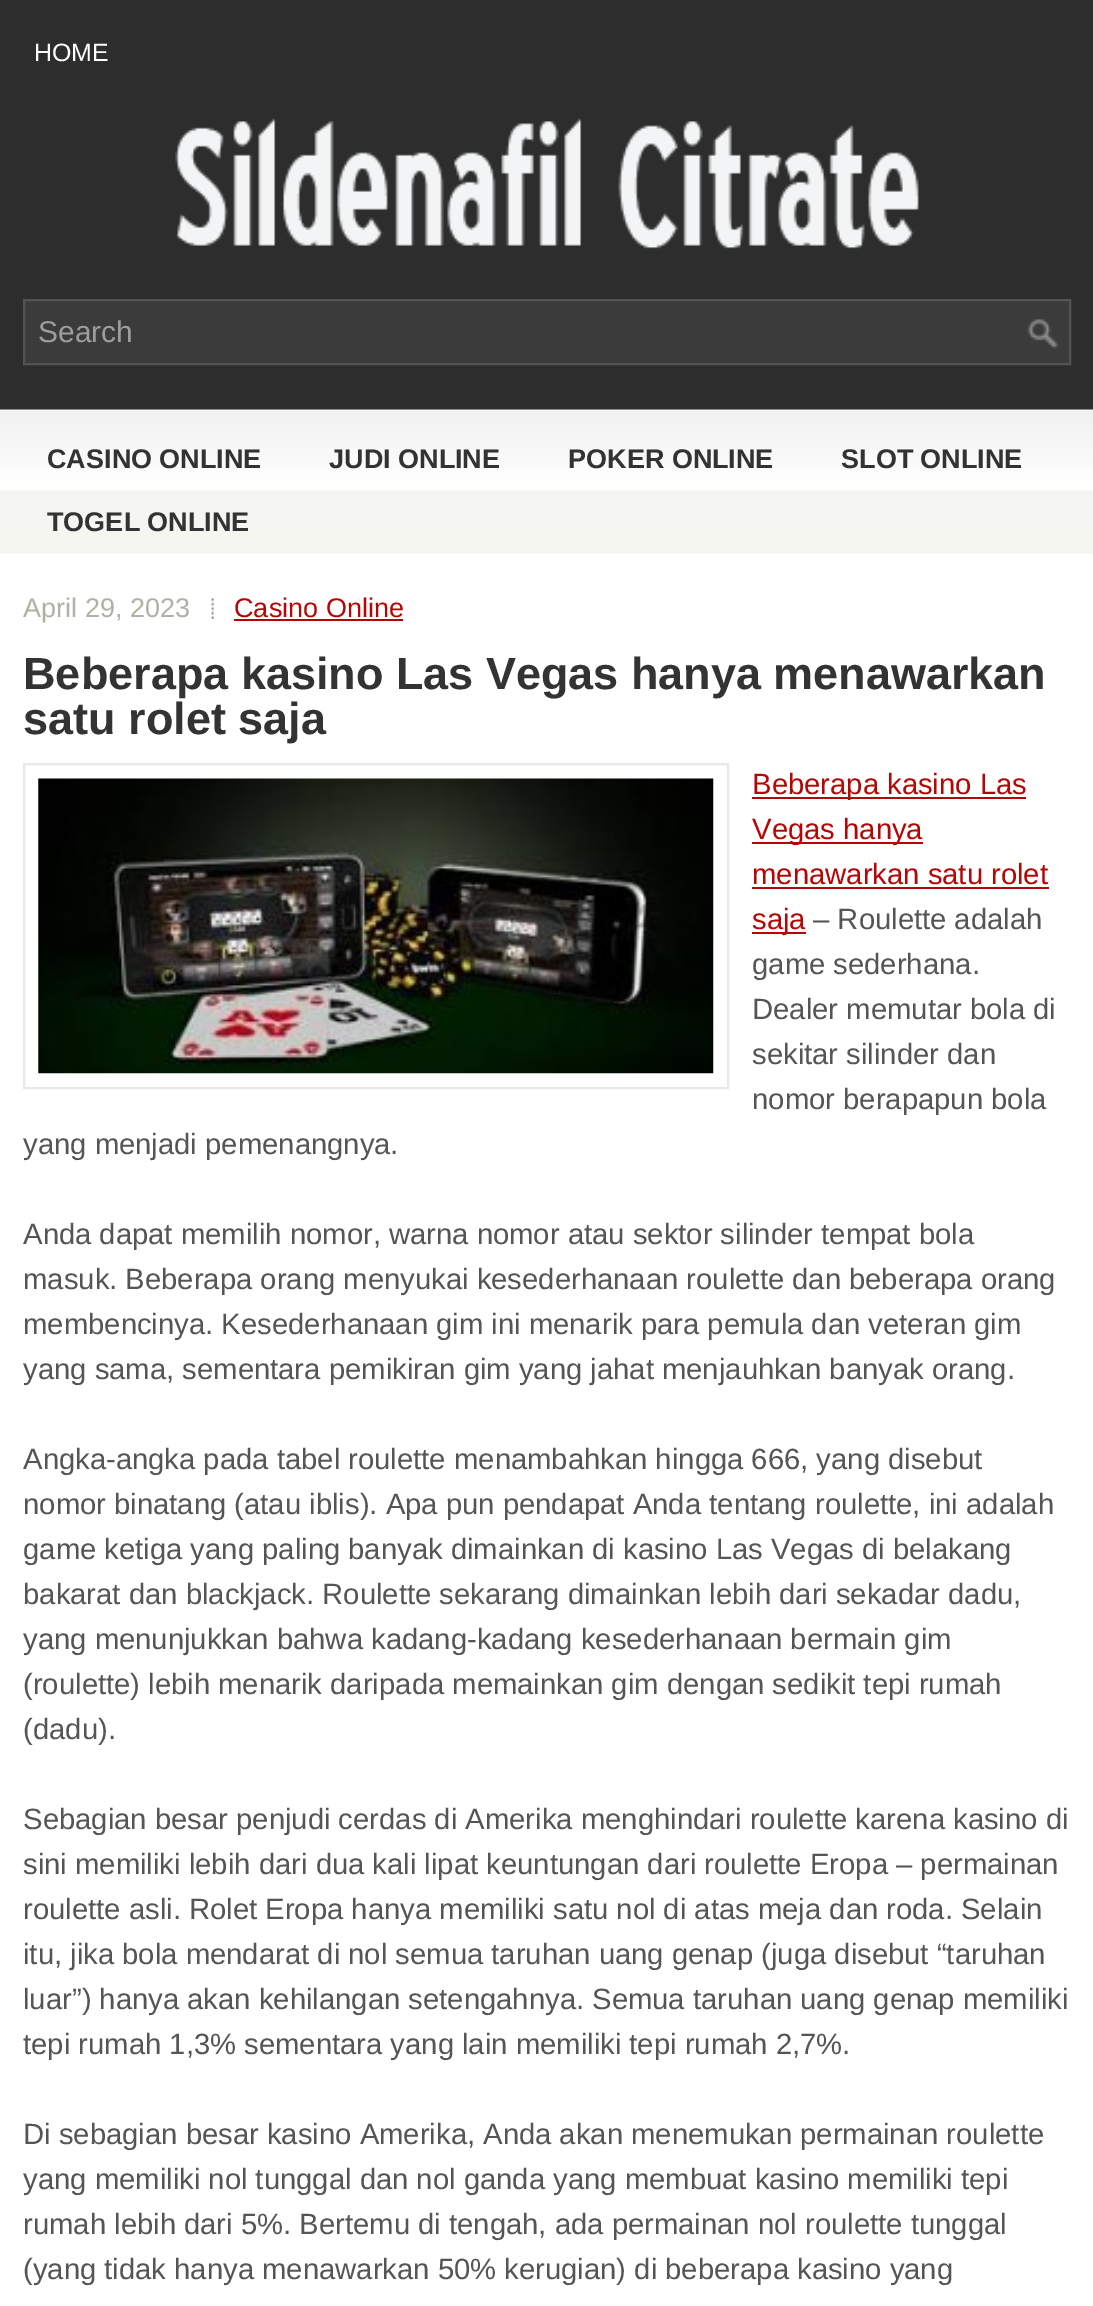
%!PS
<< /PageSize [1093 2306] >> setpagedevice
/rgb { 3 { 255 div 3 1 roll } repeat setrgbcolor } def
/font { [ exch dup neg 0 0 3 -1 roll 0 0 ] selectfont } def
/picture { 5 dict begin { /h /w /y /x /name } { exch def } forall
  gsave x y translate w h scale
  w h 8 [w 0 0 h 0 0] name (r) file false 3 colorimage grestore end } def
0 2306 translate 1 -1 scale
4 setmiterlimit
45 45 45 rgb
0 0 1093 2306 rectfill
(img/1.rgb) 0 490 1093 64 picture
(img/2.rgb) 175 118 744 131 picture
60 59 59 rgb
25 301 1044 62 rectfill
(img/3.rgb) 1027 319 31 30 picture
83 83 83 rgb
2 setlinewidth
24 300 1046 64 rectstroke
(img/4.rgb) 0 409 1093 82 picture
255 255 255 rgb
0 554 1093 1752 rectfill
(img/5.rgb) 211 598 3 21 picture
181 6 5 rgb
234 619 169 2 rectfill
234 231 231 rgb
24 764 704 324 rectstroke
(img/6.rgb) 38 778 676 296 picture
[
  [752 797 274 2 181 6 5]
  [752 842 171 2 181 6 5]
  [752 887 297 2 181 6 5]
  [752 932 54 2 181 6 5]
] { aload pop rgb rectfill } forall
/LiberationSans-Regular 25 font
254 254 254 rgb
34 61 moveto (HOME) show
/LiberationSans-Regular 30 font
157 157 157 rgb
38 342 moveto (Search) show
/LiberationSans-Bold 27 font
51 51 51 rgb
[
  [(CASINO ONLINE) 47 468]
  [(JUDI ONLINE) 329 468]
  [(POKER ONLINE) 568 468]
  [(SLOT ONLINE) 841 468]
  [(TOGEL ONLINE) 47 531]
] { aload pop moveto show } forall
/LiberationSans-Regular 27 font
176 176 164 rgb
23 617 moveto (April 29, 2023) show
181 6 5 rgb
234 617 moveto (Casino Online) show
/LiberationSans-Bold 45 font
51 51 51 rgb
23 689 moveto (Beberapa kasino Las Vegas hanya menawarkan) show
23 734 moveto (satu rolet saja) show
/LiberationSans-Regular 29.25 font
181 6 5 rgb
[
  [(Beberapa kasino Las) 752 794]
  [(Vegas hanya) 752 839]
  [(menawarkan satu rolet) 752 884]
  [(saja) 752 929]
] { aload pop moveto show } forall
85 85 85 rgb
[
  [(– Roulette adalah) 813 929]
  [(game sederhana.) 752 974]
  [(Dealer memutar bola di) 752 1019]
  [(sekitar silinder dan) 752 1064]
  [(nomor berapapun bola) 752 1109]
  [(yang menjadi pemenangnya.) 23 1154]
  [(Anda dapat memilih nomor, warna nomor atau sektor silinder tempat bola) 23 1244]
  [(masuk. Beberapa orang menyukai kesederhanaan roulette dan beberapa orang) 23 1289]
  [(membencinya. Kesederhanaan gim ini menarik para pemula dan veteran gim) 23 1334]
  [(yang sama, sementara pemikiran gim yang jahat menjauhkan banyak orang.) 23 1379]
  [(Angka-angka pada tabel roulette menambahkan hingga 666, yang disebut) 23 1469]
  [(nomor binatang \(atau iblis\). Apa pun pendapat Anda tentang roulette, ini adalah) 23 1514]
  [(game ketiga yang paling banyak dimainkan di kasino Las Vegas di belakang) 23 1559]
  [(bakarat dan blackjack. Roulette sekarang dimainkan lebih dari sekadar dadu,) 23 1604]
  [(yang menunjukkan bahwa kadang-kadang kesederhanaan bermain gim) 23 1649]
  [(\(roulette\) lebih menarik daripada memainkan gim dengan sedikit tepi rumah) 23 1694]
  [(\(dadu\).) 23 1739]
  [(Sebagian besar penjudi cerdas di Amerika menghindari roulette karena kasino di) 23 1829]
  [(sini memiliki lebih dari dua kali lipat keuntungan dari roulette Eropa – permainan) 23 1874]
  [(roulette asli. Rolet Eropa hanya memiliki satu nol di atas meja dan roda. Selain) 23 1919]
  [(itu, jika bola mendarat di nol semua taruhan uang genap \(juga disebut “taruhan) 23 1964]
  [(luar”\) hanya akan kehilangan setengahnya. Semua taruhan uang genap memiliki) 23 2009]
  [(tepi rumah 1,3% sementara yang lain memiliki tepi rumah 2,7%.) 23 2054]
  [(Di sebagian besar kasino Amerika, Anda akan menemukan permainan roulette) 23 2144]
  [(yang memiliki nol tunggal dan nol ganda yang membuat kasino memiliki tepi) 23 2189]
  [(rumah lebih dari 5%. Bertemu di tengah, ada permainan nol roulette tunggal) 23 2234]
  [(\(yang tidak hanya menawarkan 50% kerugian\) di beberapa kasino yang) 23 2279]
] { aload pop moveto show } forall
showpage
